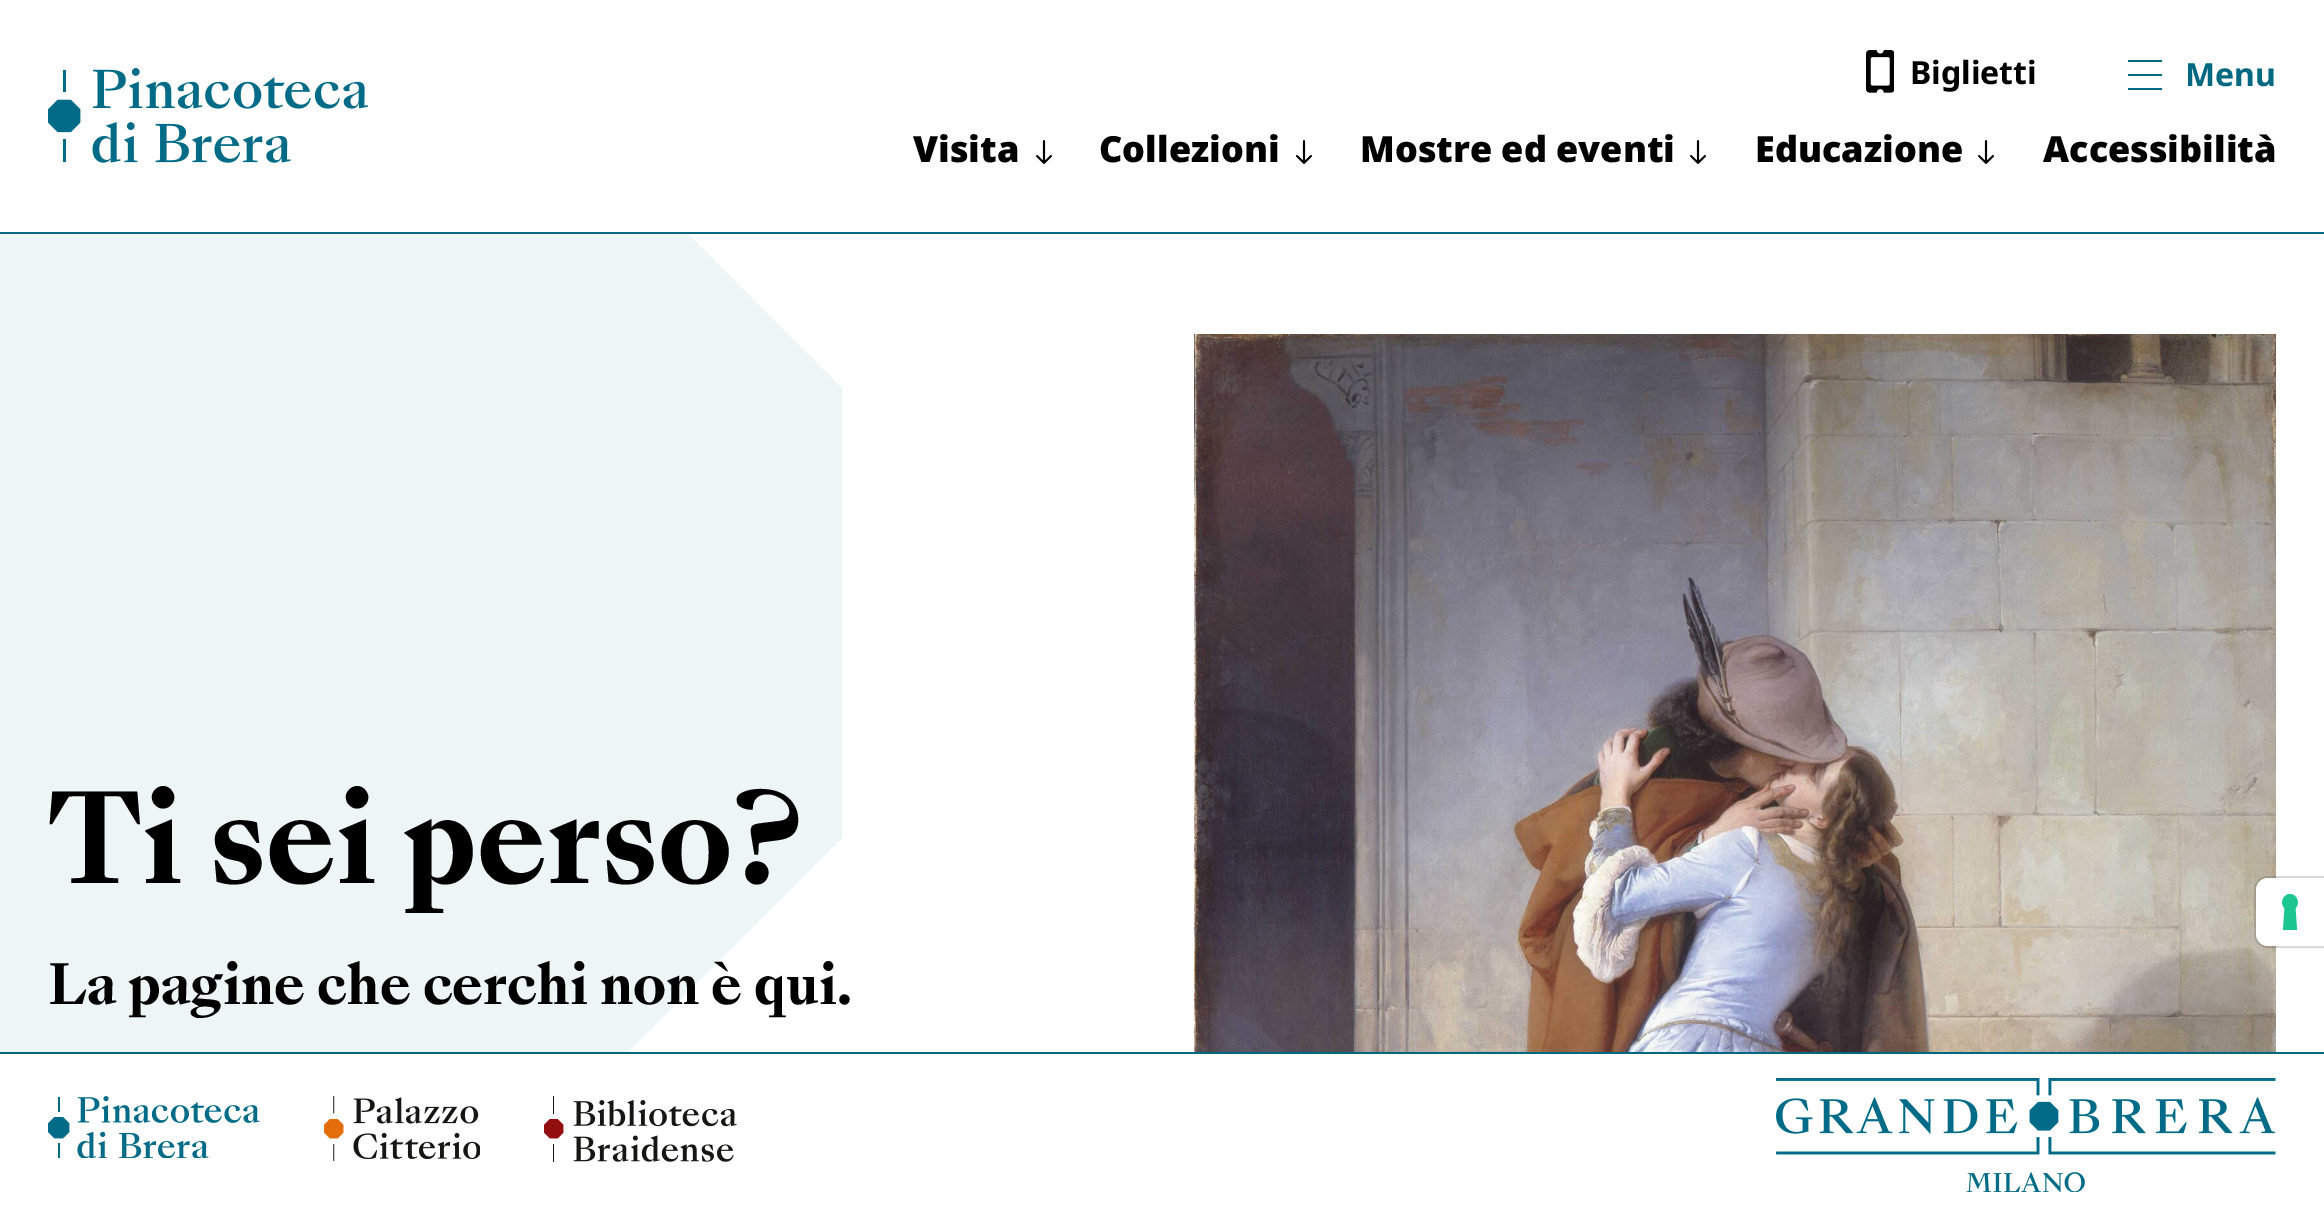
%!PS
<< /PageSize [2324 1215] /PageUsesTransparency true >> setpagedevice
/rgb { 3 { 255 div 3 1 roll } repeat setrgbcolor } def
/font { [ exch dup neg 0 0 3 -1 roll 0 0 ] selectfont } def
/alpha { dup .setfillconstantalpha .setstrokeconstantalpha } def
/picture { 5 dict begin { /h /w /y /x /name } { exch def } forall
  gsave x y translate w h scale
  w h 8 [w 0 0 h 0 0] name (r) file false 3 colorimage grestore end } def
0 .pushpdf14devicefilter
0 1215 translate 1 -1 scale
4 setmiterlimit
255 255 255 rgb
0 0 2324 1215 rectfill
(img/1.rgb) 0 234 843 818 picture
0 104 129 rgb
0 232 2324 2 rectfill
(img/2.rgb) 48 68 320 95 picture
(img/3.rgb) 1866 50 28 43 picture
2128 90 moveto 2128 88 lineto 2162 88 lineto 2162 90 lineto closepath 2128 76 moveto 2128 74 lineto 2162 74 lineto 2162 76 lineto closepath 2128 62 moveto 2128 60 lineto 2162 60 lineto 2162 62 lineto closepath fill
(img/4.rgb) 1036 140 16 24 picture
(img/4.rgb) 1296 140 16 24 picture
(img/4.rgb) 1690 140 16 24 picture
(img/4.rgb) 1978 140 16 24 picture
(img/5.rgb) 1194 334 1082 718 picture
0 1052 2324 2 rectfill
(img/6.rgb) 48 1096 212 62 picture
(img/7.rgb) 324 1096 156 65 picture
(img/8.rgb) 544 1096 193 66 picture
(img/9.rgb) 1776 1078 500 114 picture
0.15 alpha
0 0 0 rgb
2 setlinewidth
2268 877 moveto 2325 877 lineto 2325 947 lineto 2268 947 lineto 2261 947 2255 941 2255 934 curveto 2255 890 lineto 2255 883 2261 877 2268 877 curveto closepath stroke
1 alpha
255 255 255 rgb
2268 878 moveto 2324 878 lineto 2324 946 lineto 2268 946 lineto 2261.5 946 2256 940.5 2256 934 curveto 2256 890 lineto 2256 883.5 2261.5 878 2268 878 curveto closepath fill
28 198 145 rgb
2290 894 moveto 2297 894 2300.5 903.5 2295.5 908 curveto 2297 930 lineto 2283 930 lineto 2284.5 908 lineto 2279.5 903.5 2283 894 2290 894 curveto closepath eofill
/NotoSans-Bold 32 font
0 0 0 rgb
1910 84 moveto (Biglietti) show
0 104 129 rgb
2185 86 moveto (Menu) show
/NotoSans-Black 36 font
0 0 0 rgb
[
  [(Visita) 913 162]
  [(Collezioni) 1099 162]
  [(Mostre ed eventi) 1360 162]
  [(Educazione) 1755 162]
  [(Accessibilità) 2043 162]
] { aload pop moveto show } forall
/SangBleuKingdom-Bold 121 font
48 883 moveto (Ti sei perso?) show
/SangBleuKingdom-Bold 53.7 font
48 1004 moveto (La pagine che cerchi non è qui.) show
.poppdf14devicefilter showpage
